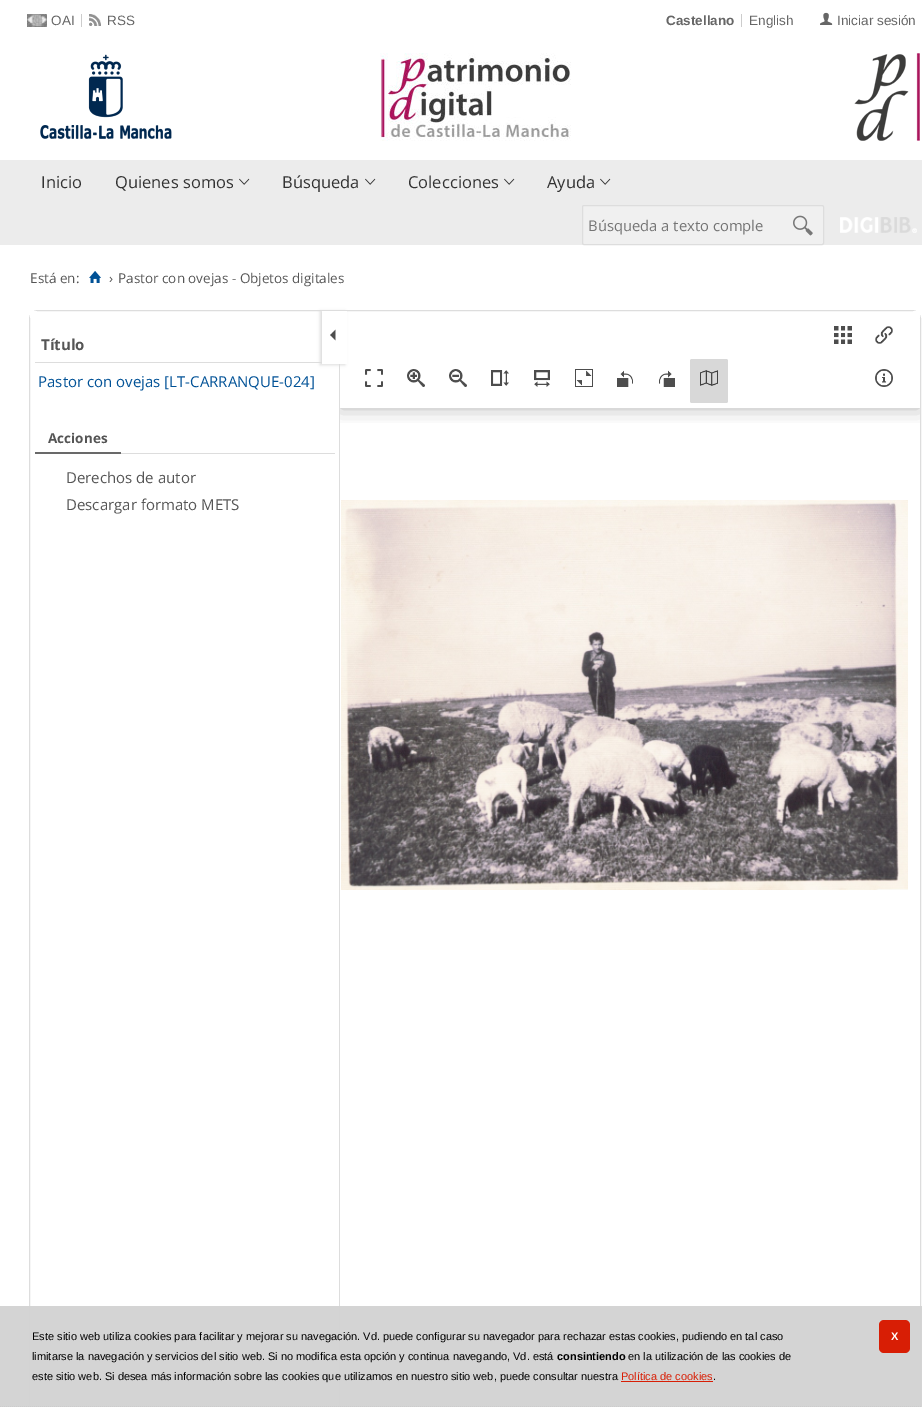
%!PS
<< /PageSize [922 1407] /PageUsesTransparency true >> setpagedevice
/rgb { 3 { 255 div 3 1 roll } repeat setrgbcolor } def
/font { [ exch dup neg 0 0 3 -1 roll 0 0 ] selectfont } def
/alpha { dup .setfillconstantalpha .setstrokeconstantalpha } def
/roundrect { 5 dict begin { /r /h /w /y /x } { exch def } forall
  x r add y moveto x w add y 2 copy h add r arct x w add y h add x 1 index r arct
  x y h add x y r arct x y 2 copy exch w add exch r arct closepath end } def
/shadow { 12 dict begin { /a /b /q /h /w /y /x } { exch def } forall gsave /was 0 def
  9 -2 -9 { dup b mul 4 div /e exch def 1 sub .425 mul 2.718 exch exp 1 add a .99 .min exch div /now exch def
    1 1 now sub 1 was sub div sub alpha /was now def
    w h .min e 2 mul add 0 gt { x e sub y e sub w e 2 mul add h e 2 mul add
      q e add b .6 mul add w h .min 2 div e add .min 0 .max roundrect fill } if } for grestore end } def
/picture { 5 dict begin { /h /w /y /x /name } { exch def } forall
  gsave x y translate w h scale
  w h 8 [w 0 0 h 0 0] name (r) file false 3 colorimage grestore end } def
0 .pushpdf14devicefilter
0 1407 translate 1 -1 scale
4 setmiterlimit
255 255 255 rgb
0 0 922 1407 rectfill
(img/1.rgb) 27 14 20 13 picture
204 204 204 rgb
81 14 1 13 rectfill
(img/2.rgb) 89 14 12 12 picture
741 14 1 13 rectfill
(img/3.rgb) 820 12 13 13 picture
(img/4.rgb) 380 53 191 88 picture
(img/5.rgb) 40 54 132 85 picture
(img/6.rgb) 854 53 66 88 picture
236 236 236 rgb
0 160 922 85 rectfill
(img/7.rgb) 239 178 11 7 picture
(img/7.rgb) 365 178 11 7 picture
(img/7.rgb) 504 178 11 7 picture
(img/7.rgb) 600 178 11 7 picture
240 240 240 rgb
582.5 205.5 241 39 1.5 roundrect gsave fill grestore
221 221 221 rgb
stroke
(img/8.rgb) 793 215 20 21 picture
(img/9.rgb) 840 217 77 16 picture
(img/10.rgb) 89 271 12 12 picture
29.5 310.5 891 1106 8.5 roundrect stroke
[
  [30 311 7 7 255 255 255]
  [339 364 1 1043 221 221 221]
  [35 362 287 1 221 221 221]
  [121 453 214 1 221 221 221]
  [35 452 86 2 105 105 105]
] { aload pop rgb rectfill } forall
221 221 221 rgb
320 311 25 54 0 1.5 1 shadow
255 255 255 rgb
322 311 25 53 rectfill
(img/11.rgb) 330 329 6 12 picture
913 311 7 7 rectfill
gsave
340 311 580 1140 rectclip
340 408 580 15 rectclip
0 0 0 rgb
340 311 580 97 0 10 0.3 shadow
grestore
(img/12.rgb) 365 369 18 18 picture
(img/13.rgb) 407 369 18 18 picture
(img/14.rgb) 449 369 18 18 picture
(img/15.rgb) 491 370 18 16 picture
(img/16.rgb) 534 370 16 17 picture
(img/17.rgb) 575 369 18 18 picture
(img/18.rgb) 617 370 16 17 picture
(img/19.rgb) 659 370 16 17 picture
216 216 216 rgb
690 359 38 44 2 roundrect fill
(img/20.rgb) 700 370 18 16 picture
(img/21.rgb) 834 326 18 18 picture
(img/22.rgb) 875 326 18 18 picture
(img/23.rgb) 875 369 18 18 picture
(img/24.rgb) 341 500 567 390 picture
0.95 alpha
210 210 210 rgb
0 1306 922 101 rectfill
1 alpha
204 204 204 rgb
[1 1] 0 setdash
0 1406.5 moveto 922 1406.5 lineto stroke
216 30 5 rgb
621 1381 92 1 rectfill
879 1320 31 33 5 roundrect fill
/LiberationSans-Regular 13.5 font
102 102 102 rgb
51 25 moveto (OAI) show
107 25 moveto (RSS) show
/LiberationSans-Bold 13.5 font
666 25 moveto (Castellano) show
/LiberationSans-Regular 13.5 font
749 25 moveto (English) show
837 25 moveto (Iniciar sesión) show
/OpenSans-Regular 16.5 font
51 51 51 rgb
[
  [(Inicio) 41 188]
  [(Quienes somos) 115 188]
  [(Búsqueda) 282 188]
  [(Colecciones) 408 188]
  [(Ayuda) 547 188]
] { aload pop moveto show } forall
/OpenSans-Regular 14.8 font
117 117 117 rgb
588 231 moveto (Búsqueda a texto comple) show
/OpenSans-Regular 13.5 font
85 85 85 rgb
[
  [(Está en:) 30 283]
  [(›) 109 283]
  [(Pastor con ovejas - Objetos digitales) 118 283]
] { aload pop moveto show } forall
/OpenSans-Bold 15 font
41 350 moveto (Título) show
/OpenSans-Regular 15 font
0 81 150 rgb
38 387 moveto (Pastor con ovejas [LT-CARRANQUE-024]) show
/OpenSans-Bold 13.5 font
85 85 85 rgb
48 443 moveto (Acciones) show
/OpenSans-Regular 15 font
66 483 moveto (Derechos de autor) show
66 510 moveto (Descargar formato METS) show
/LiberationSans-Regular 11 font
0 0 0 rgb
32 1340 moveto (Este sitio web utiliza cookies para facilitar y mejorar su navegación. Vd. puede configurar su navegador para rechazar estas cookies, pudiendo en tal caso) show
32 1360 moveto (limitarse la navegación y servicios del sitio web. Si no modifica esta opción y continua navegando, Vd. está) show
/LiberationSans-Bold 11 font
557 1360 moveto (consintiendo) show
/LiberationSans-Regular 11 font
628 1360 moveto (en la utilización de las cookies de) show
32 1380 moveto (este sitio web. Si desea más información sobre las cookies que utilizamos en nuestro sitio web, puede consultar nuestra) show
216 30 5 rgb
621 1380 moveto (Política de cookies) show
0 0 0 rgb
713 1380 moveto (.) show
/LiberationSans-Bold 11 font
255 255 255 rgb
891 1340 moveto -1 0 (X) ashow
.poppdf14devicefilter showpage
